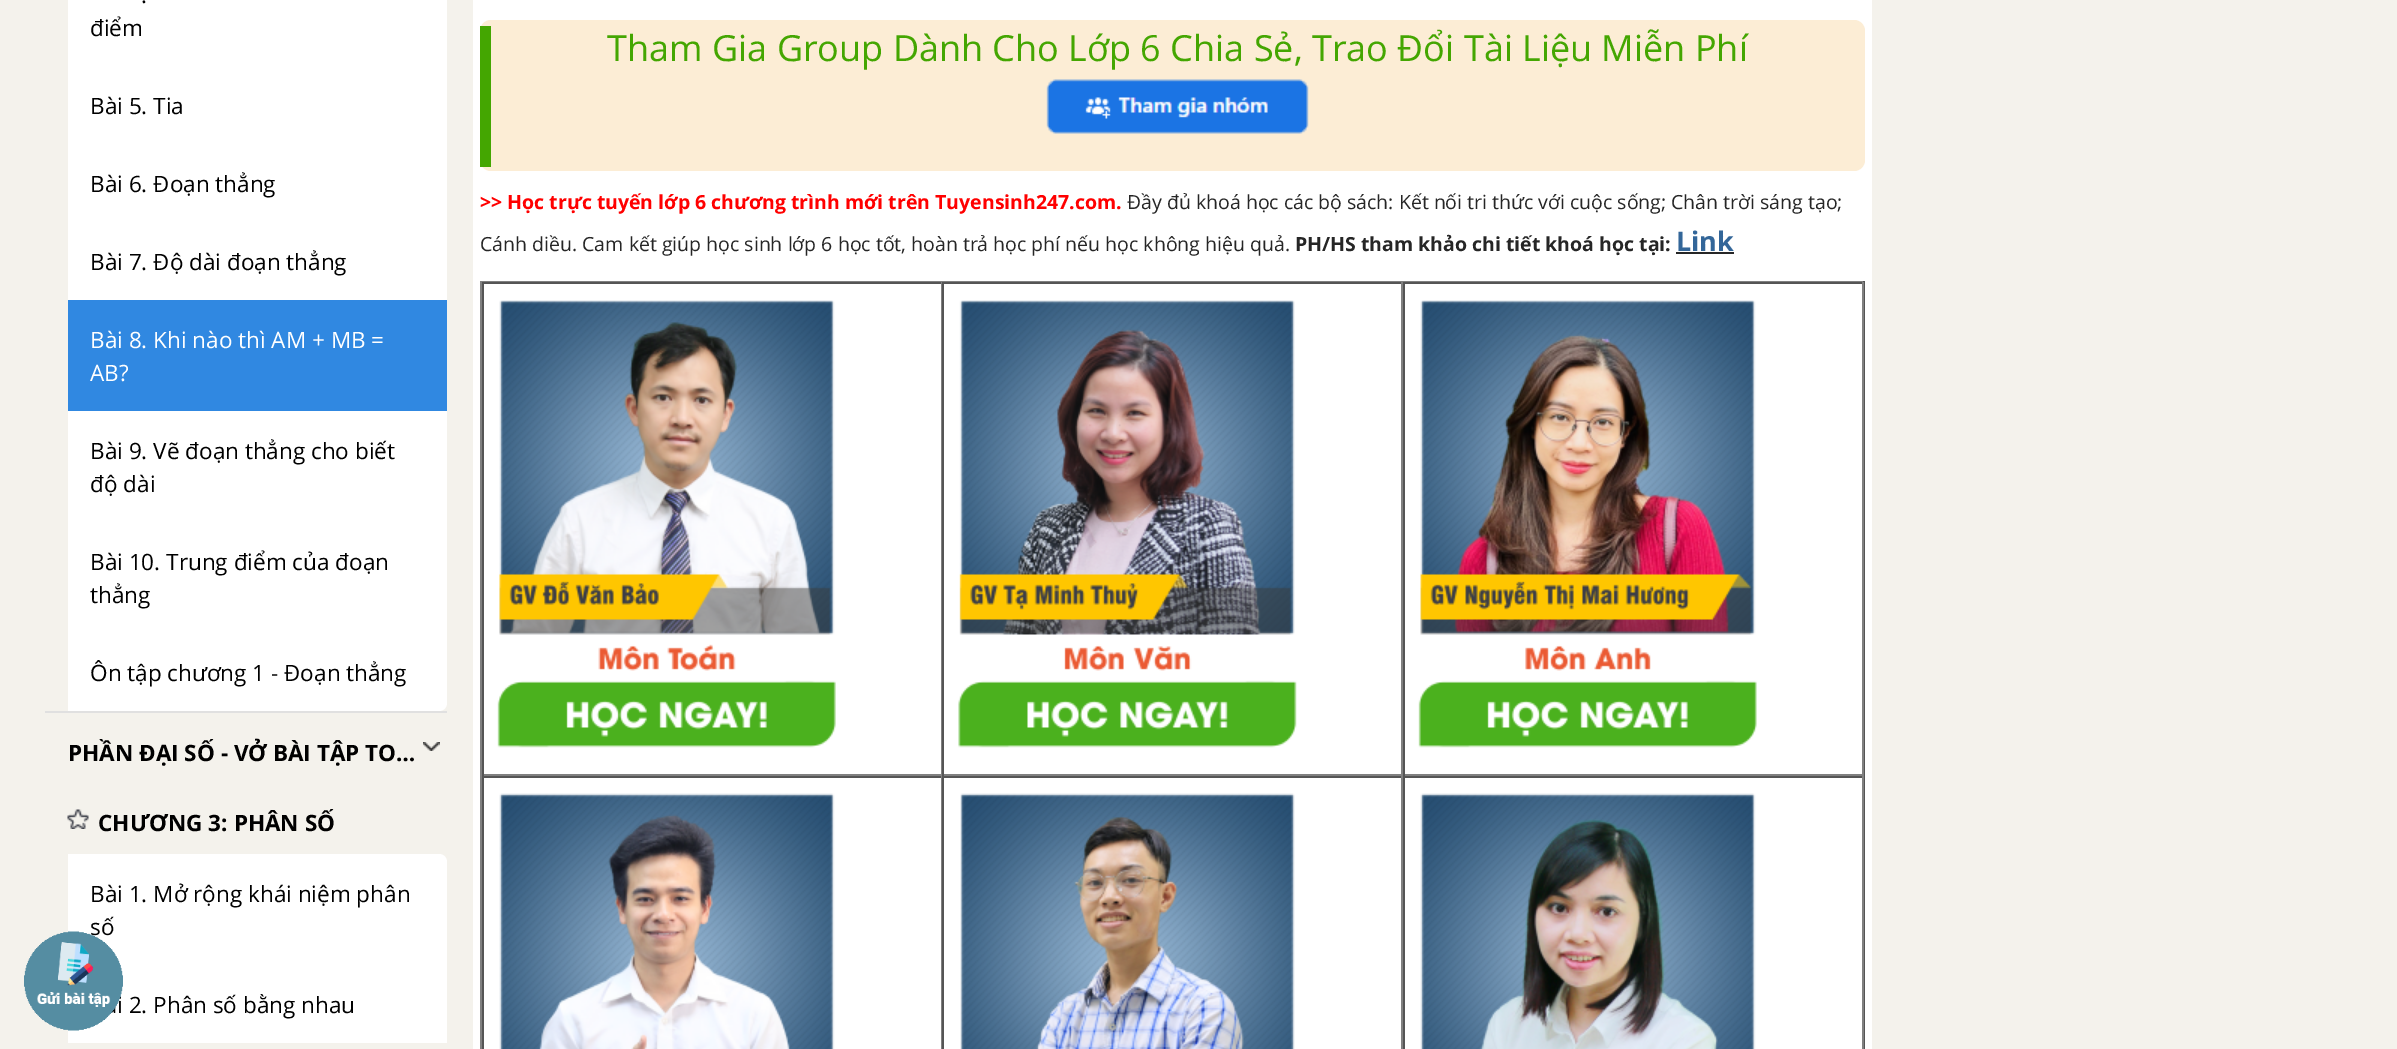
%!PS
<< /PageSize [2397 1049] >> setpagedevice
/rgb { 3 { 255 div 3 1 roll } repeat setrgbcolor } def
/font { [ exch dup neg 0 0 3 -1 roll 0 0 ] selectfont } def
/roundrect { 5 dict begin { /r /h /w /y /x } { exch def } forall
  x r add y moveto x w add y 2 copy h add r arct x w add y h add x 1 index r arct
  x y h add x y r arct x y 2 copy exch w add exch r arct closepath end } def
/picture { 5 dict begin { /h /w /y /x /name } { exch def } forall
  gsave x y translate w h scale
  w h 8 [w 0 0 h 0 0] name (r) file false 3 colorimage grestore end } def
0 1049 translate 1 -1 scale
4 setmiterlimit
244 242 236 rgb
0 0 2397 1049 rectfill
[
  [45 711 402 2 224 224 224]
  [68 0 379 300 255 255 255]
  [68 300 379 111 48 136 225]
  [68 411 379 222 255 255 255]
] { aload pop rgb rectfill } forall
68 633 moveto 447 633 lineto 447 703 lineto 447 707.5 443.5 711 439 711 curveto 68 711 lineto closepath fill
(img/1.rgb) 423 742 17 9 picture
(img/2.rgb) 67 809 22 20 picture
68 854 moveto 439 854 lineto 443.5 854 447 857.5 447 862 curveto 447 965 lineto 68 965 lineto closepath fill
68 965 379 78 rectfill
473 0 1399 1049 rectfill
252 237 213 rgb
480 20 1385 151 11 roundrect fill
68 166 1 rgb
480 26 11 141 rectfill
(img/3.rgb) 1046 79 263 55 picture
[
  [1676 252 58 2 38 38 38]
  [480 281 1385 1 128 128 128]
  [1863 281 2 768 85 85 85]
  [480 281 2 768 128 128 128]
  [482 282 1381 2 85 85 85]
  [941 282 1 494 128 128 128]
  [482 774 460 2 128 128 128]
  [482 282 2 494 85 85 85]
] { aload pop rgb rectfill } forall
(img/4.rgb) 497 300 339 448 picture
[
  [1401 282 2 494 128 128 128]
  [942 774 461 2 128 128 128]
  [942 282 2 494 85 85 85]
] { aload pop rgb rectfill } forall
(img/5.rgb) 958 300 339 448 picture
[
  [1862 282 2 494 128 128 128]
  [1403 774 460 2 128 128 128]
  [1403 282 2 494 85 85 85]
] { aload pop rgb rectfill } forall
(img/6.rgb) 1418 300 339 448 picture
[
  [482 776 1381 2 85 85 85]
  [941 776 1 273 128 128 128]
  [482 776 2 273 85 85 85]
] { aload pop rgb rectfill } forall
(img/7.rgb) 499 793 336 256 picture
128 128 128 rgb
1401 776 2 273 rectfill
85 85 85 rgb
942 776 2 273 rectfill
(img/8.rgb) 960 793 335 256 picture
128 128 128 rgb
1862 776 2 273 rectfill
85 85 85 rgb
1403 776 2 273 rectfill
(img/9.rgb) 1420 793 336 256 picture
/OpenSans-Regular 22.5 font
0 0 0 rgb
[
  [(.) 141 3]
  [(điểm) 90 36]
  [(Bài 5. Tia) 90 114]
  [(Bài 6. Đoạn thẳng) 90 192]
  [(Bài 7. Độ dài đoạn thẳng) 90 270]
] { aload pop moveto show } forall
255 255 255 rgb
90 348 moveto (Bài 8. Khi nào thì AM + MB =) show
90 381 moveto (AB?) show
0 0 0 rgb
[
  [(Bài 9. Vẽ đoạn thẳng cho biết) 90 459]
  [(độ dài) 90 492]
  [(Bài 10. Trung điểm của đoạn) 90 570]
  [(thẳng) 90 603]
  [(Ôn tập chương 1 - Đoạn thẳng) 90 681]
] { aload pop moveto show } forall
/OpenSans-Bold 22.5 font
68 761 moveto (PHẦN ĐẠI SỐ - VỞ BÀI TẬP TO…) show
98 831 moveto (CHƯƠNG 3: PHÂN SỐ) show
/OpenSans-Regular 22.5 font
[
  [(Bài 1. Mở rộng khái niệm phân) 90 902]
  [(số) 90 935]
  [(i 2. Phân số bằng nhau) 117 1013]
] { aload pop moveto show } forall
/OpenSans-Regular 36 font
68 166 1 rgb
607 61 moveto (Tham Gia Group Dành Cho Lớp 6 Chia Sẻ, Trao Đổi Tài Liệu Miễn Phí) show
/OpenSans-Bold 19.5 font
255 0 0 rgb
480 209 moveto (>> Học trực tuyến lớp 6 chương trình mới trên Tuyensinh247.com.) show
/OpenSans-Regular 19.5 font
38 38 38 rgb
1127 209 moveto (Đầy đủ khoá học các bộ sách: Kết nối tri thức với cuộc sống; Chân trời sáng tạo;) show
480 251 moveto (Cánh diều. Cam kết giúp học sinh lớp 6 học tốt, hoàn trả học phí nếu học không hiệu quả.) show
/OpenSans-Bold 19.5 font
1295 251 moveto (PH/HS tham khảo chi tiết khoá học tại:) show
/OpenSans-Bold 27 font
51 102 153 rgb
1676 251 moveto (Link) show
(img/10.rgb) 24 931 99 100 picture
showpage
